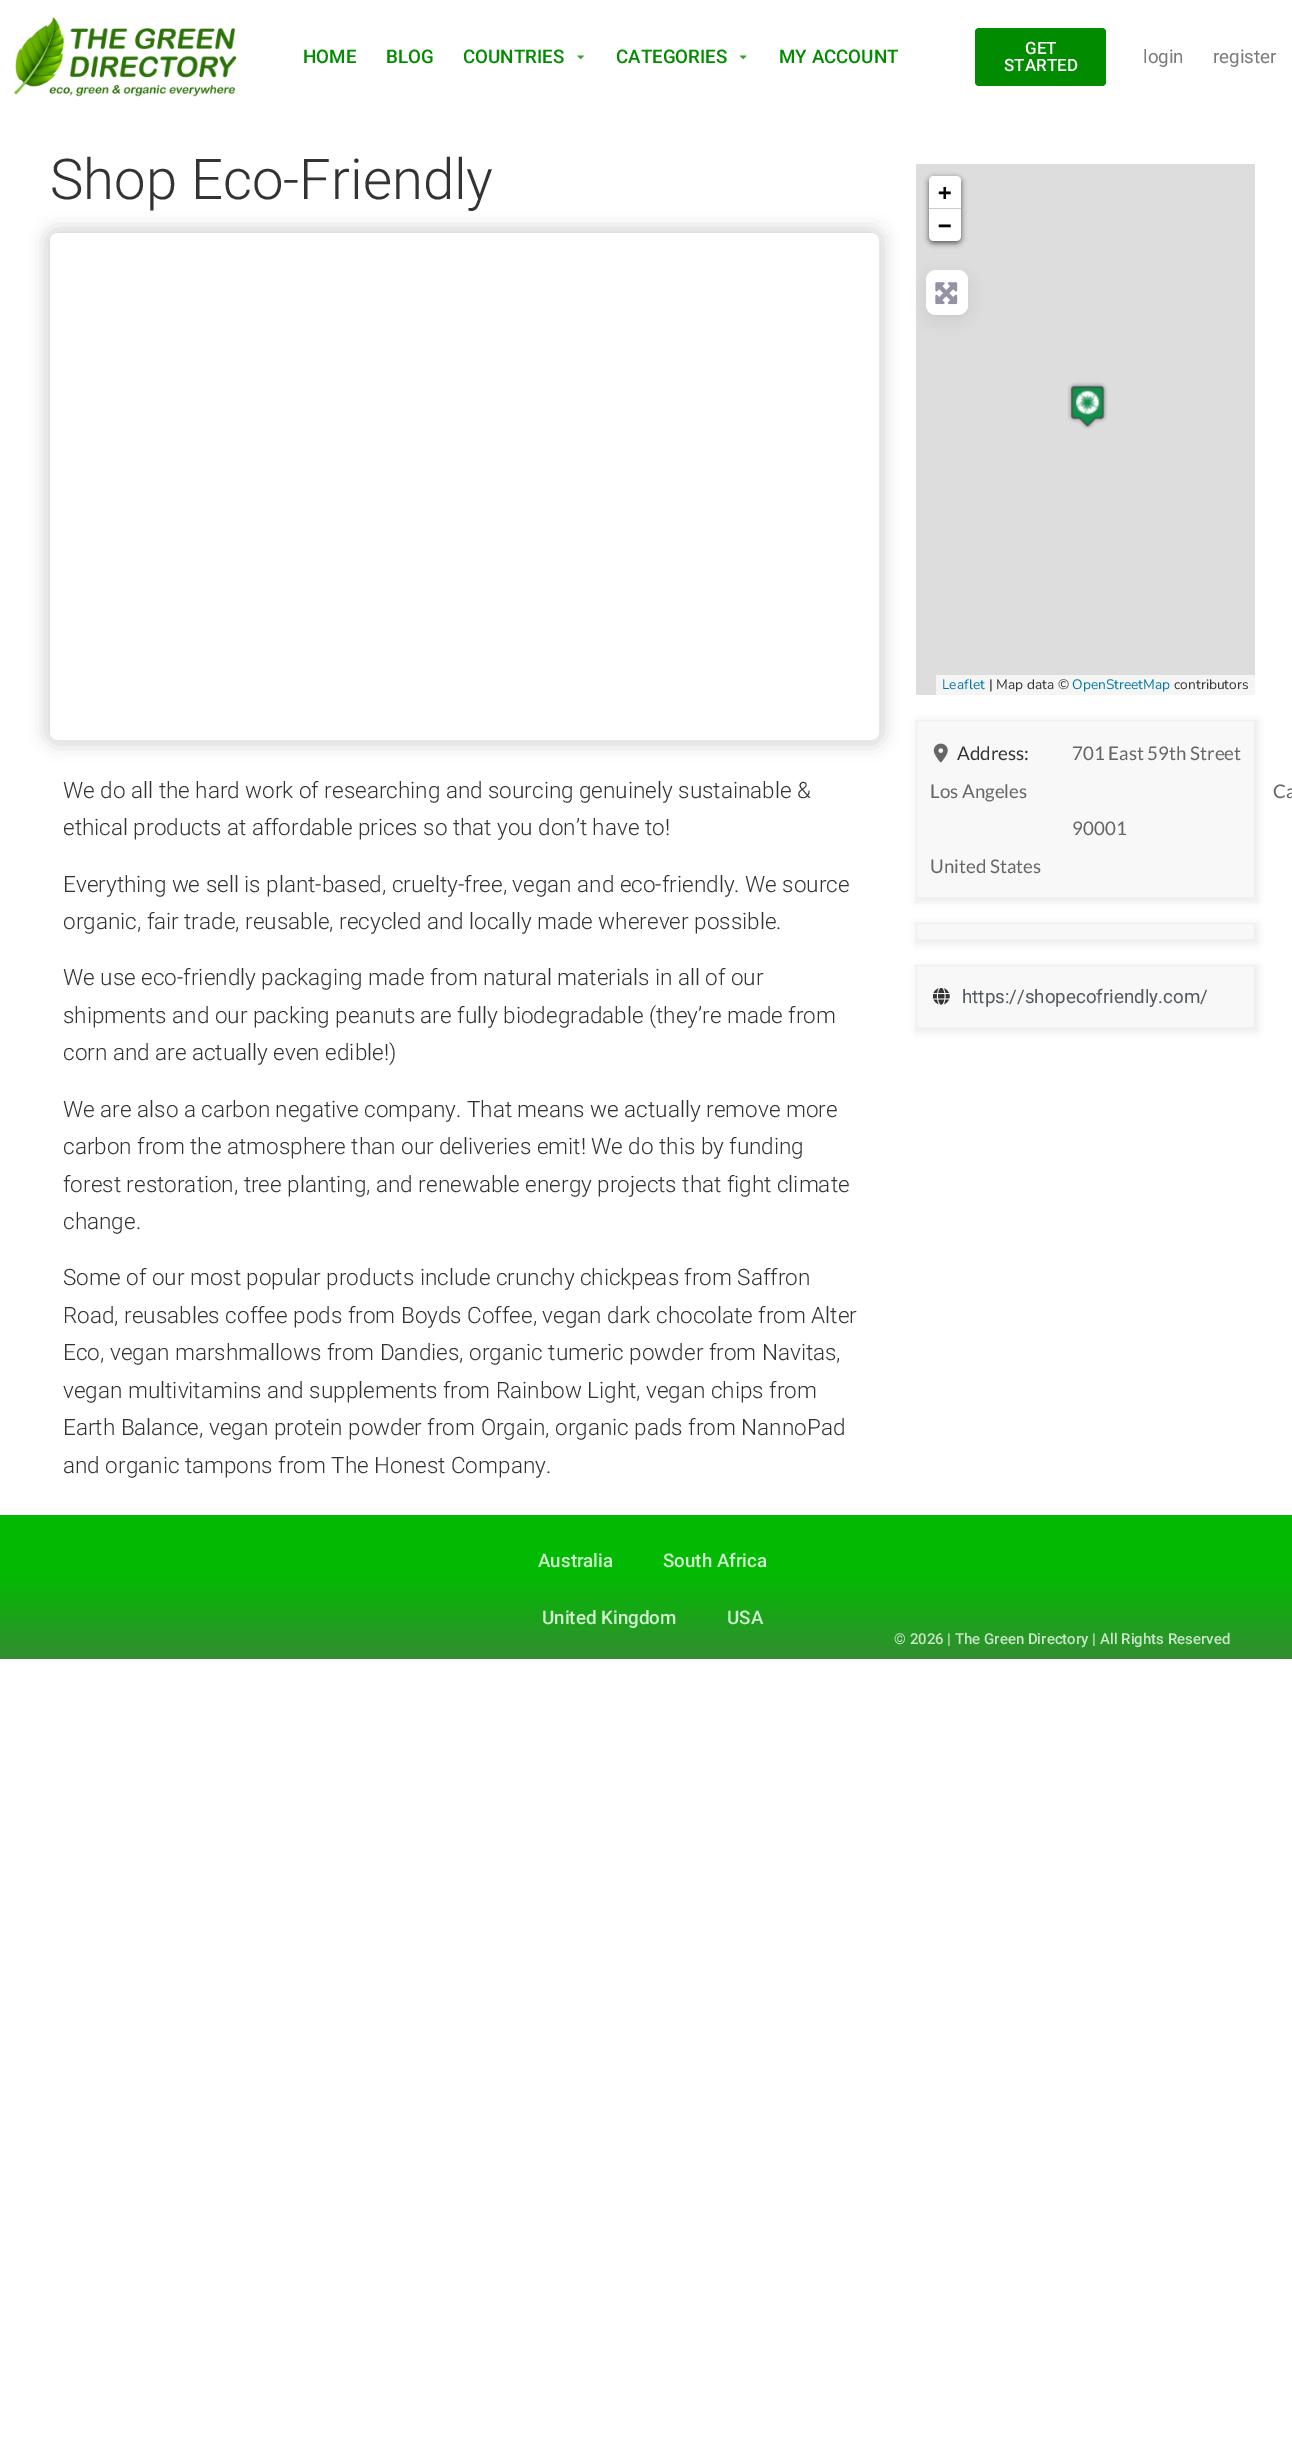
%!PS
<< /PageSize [1292 2447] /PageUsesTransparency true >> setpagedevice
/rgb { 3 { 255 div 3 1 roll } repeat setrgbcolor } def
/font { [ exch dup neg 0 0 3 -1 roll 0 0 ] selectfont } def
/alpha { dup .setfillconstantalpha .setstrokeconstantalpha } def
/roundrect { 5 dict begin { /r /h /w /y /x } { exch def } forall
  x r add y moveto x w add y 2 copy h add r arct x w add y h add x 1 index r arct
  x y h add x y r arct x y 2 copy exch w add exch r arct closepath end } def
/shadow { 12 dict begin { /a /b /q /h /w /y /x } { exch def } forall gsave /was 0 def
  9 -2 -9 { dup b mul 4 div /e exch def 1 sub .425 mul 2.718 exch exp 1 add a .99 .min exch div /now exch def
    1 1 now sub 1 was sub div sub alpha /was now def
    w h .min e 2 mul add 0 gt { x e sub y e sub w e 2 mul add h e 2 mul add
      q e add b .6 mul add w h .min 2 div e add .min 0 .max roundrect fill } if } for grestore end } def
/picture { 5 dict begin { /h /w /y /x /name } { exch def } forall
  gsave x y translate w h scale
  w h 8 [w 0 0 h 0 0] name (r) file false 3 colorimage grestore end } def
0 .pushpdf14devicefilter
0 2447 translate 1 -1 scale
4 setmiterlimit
255 255 255 rgb
0 0 1292 2447 rectfill
(img/1.rgb) 14 17 223 80 picture
(img/2.rgb) 577 55 7 5 picture
(img/3.rgb) 739 55 8 5 picture
1 139 0 rgb
975 28 131 58 4 roundrect fill
gsave
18 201 moveto 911 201 lineto 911 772 lineto 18 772 lineto closepath 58 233 moveto 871 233 lineto 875.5 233 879 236.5 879 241 curveto 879 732 lineto 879 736.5 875.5 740 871 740 curveto 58 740 lineto 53.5 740 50 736.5 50 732 curveto 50 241 lineto 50 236.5 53.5 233 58 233 curveto closepath eoclip newpath
1 1 1 rgb
46 229 837 515 11 9 0.18 shadow
grestore
255 255 255 rgb
4 setlinewidth
52 235 825 503 6 roundrect stroke
221 221 221 rgb
916 164 339 531 rectfill
0 0 0 rgb
929 178 32 65 5 3 0.65 shadow
255 255 255 rgb
934 176 moveto 956 176 lineto 959 176 961 178 961 181 curveto 961 209 lineto 929 209 lineto 929 181 lineto 929 178 931 176 934 176 curveto closepath fill
204 204 204 rgb
929 208 32 1 rectfill
255 255 255 rgb
929 209 moveto 961 209 lineto 961 236 lineto 961 239 959 241 956 241 curveto 934 241 lineto 931 241 929 239 929 236 curveto closepath fill
245 245 245 rgb
936 675 319 20 rectfill
(img/4.rgb) 1067 382 41 47 picture
31 27 45 rgb
926 275 42 45 10 7.5 0.08 shadow
929 275 36 40 8 1 0.08 shadow
255 255 255 rgb
926 270 42 45 10 roundrect fill
(img/5.rgb) 935 282 23 23 picture
gsave
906 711 moveto 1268 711 lineto 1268 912 lineto 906 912 lineto closepath 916 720 moveto 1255 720 lineto 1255 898 lineto 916 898 lineto closepath eoclip newpath
68 68 68 rgb
915 720 344 183 0 2.5 0.08 shadow
grestore
0.45 alpha
239 239 239 rgb
916.5 720.5 moveto 1254.5 720.5 lineto 1254.5 897.5 lineto 916.5 897.5 lineto closepath fill
1 alpha
1 setlinewidth
916.5 720.5 moveto 1254.5 720.5 lineto 1254.5 897.5 lineto 916.5 897.5 lineto closepath stroke
(img/6.rgb) 933 743 15 20 picture
gsave
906 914 moveto 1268 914 lineto 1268 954 lineto 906 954 lineto closepath 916 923 moveto 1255 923 lineto 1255 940 lineto 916 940 lineto closepath eoclip newpath
68 68 68 rgb
915 923 344 22 0 2.5 0.08 shadow
grestore
0.45 alpha
916.5 923.5 moveto 1254.5 923.5 lineto 1254.5 939.5 lineto 916.5 939.5 lineto closepath fill
1 alpha
916.5 923.5 moveto 1254.5 923.5 lineto 1254.5 939.5 lineto 916.5 939.5 lineto closepath stroke
gsave
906 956 moveto 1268 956 lineto 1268 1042 lineto 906 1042 lineto closepath 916 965 moveto 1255 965 lineto 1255 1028 lineto 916 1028 lineto closepath eoclip newpath
68 68 68 rgb
915 965 344 68 0 2.5 0.08 shadow
grestore
0.45 alpha
916.5 965.5 moveto 1254.5 965.5 lineto 1254.5 1027.5 lineto 916.5 1027.5 lineto closepath fill
1 alpha
916.5 965.5 moveto 1254.5 965.5 lineto 1254.5 1027.5 lineto 916.5 1027.5 lineto closepath stroke
(img/7.rgb) 933 988 17 17 picture
gsave 0 1515 moveto 1292 1515 lineto 1292 1659 lineto 0 1659 lineto closepath clip newpath
<< /ShadingType 2 /ColorSpace /DeviceRGB /Coords [646 1515 646 1659] /Extend [true true] /Function << /FunctionType 3 /Domain [0 1] /Functions [<< /FunctionType 2 /Domain [0 1] /C0 [0.012 0.729 0.008] /C1 [0.012 0.729 0.008] /N 1 >> << /FunctionType 2 /Domain [0 1] /C0 [0.012 0.729 0.008] /C1 [0.2 0.553 0.196] /N 1 >>] /Bounds [0.41] /Encode [0 1 0 1] >> >> shfill grestore
/Roboto-Medium 18.75 font
1 139 0 rgb
[
  [(HOME) 303 63]
  [(BLOG) 386 63]
  [(COUNTRIES) 463 63]
  [(CATEGORIES) 616 63]
  [(MY ACCOUNT) 779 63]
] { aload pop moveto show } forall
/Roboto-Medium 17 font
255 255 255 rgb
1025 54 moveto (GET) show
1004 71 moveto (STARTED) show
/Roboto-Regular 18.75 font
122 122 122 rgb
1143 63 moveto (login) show
1213 63 moveto (register) show
/Roboto-Light 56.25 font
51 51 51 rgb
50 199 moveto (Shop Eco-Friendly) show
/Roboto-Light 22.5 font
[
  [(We do all the hard work of researching and sourcing genuinely sustainable &) 63 798]
  [(ethical products at affordable prices so that you don’t have to!) 63 835]
  [(Everything we sell is plant-based, cruelty-free, vegan and eco-friendly. We source) 63 892]
  [(organic, fair trade, reusable, recycled and locally made wherever possible.) 63 929]
  [(We use eco-friendly packaging made from natural materials in all of our) 63 985]
  [(shipments and our packing peanuts are fully biodegradable \(they’re made from) 63 1023]
  [(corn and are actually even edible!\)) 63 1060]
  [(We are also a carbon negative company. That means we actually remove more) 63 1117]
  [(carbon from the atmosphere than our deliveries emit! We do this by funding) 63 1154]
  [(forest restoration, tree planting, and renewable energy projects that fight climate) 63 1192]
  [(change.) 63 1229]
  [(Some of our most popular products include crunchy chickpeas from Saffron) 63 1285]
  [(Road, reusables coffee pods from Boyds Coffee, vegan dark chocolate from Alter) 63 1323]
  [(Eco, vegan marshmallows from Dandies, organic tumeric powder from Navitas,) 63 1360]
  [(vegan multivitamins and supplements from Rainbow Light, vegan chips from) 63 1398]
  [(Earth Balance, vegan protein powder from Orgain, organic pads from NannoPad) 63 1435]
  [(and organic tampons from The Honest Company.) 63 1473]
] { aload pop moveto show } forall
/DejaVuSansMono-Bold 22.5 font
0 0 0 rgb
938 200 moveto (+) show
938 233 moveto (−) show
/Nunito-Regular 13.75 font
0 120 168 rgb
942 689 moveto (Leaflet) show
51 51 51 rgb
989 689 moveto (| Map data ©) show
0 120 168 rgb
1072 689 moveto (OpenStreetMap) show
51 51 51 rgb
1174 689 moveto (contributors) show
/Lato-Regular 18.75 font
957 760 moveto (Address:) show
102 102 102 rgb
[
  [(701 East 59th Street) 1072 760]
  [(Los Angeles) 930 798]
  [(Ca) 1273 798]
  [(90001) 1072 835]
  [(United States) 930 873]
] { aload pop moveto show } forall
/Roboto-Regular 18.75 font
84 89 95 rgb
962 1003 moveto (https://shopecofriendly.com/) show
/Roboto-Medium 18.75 font
210 243 209 rgb
[
  [(Australia) 538 1567]
  [(South Africa) 663 1567]
  [(United Kingdom) 542 1624]
  [(USA) 727 1624]
] { aload pop moveto show } forall
/Roboto-Medium 15 font
201 229 201 rgb
894 1644 moveto (© 2026 | The Green Directory | All Rights Reserved) show
.poppdf14devicefilter showpage
